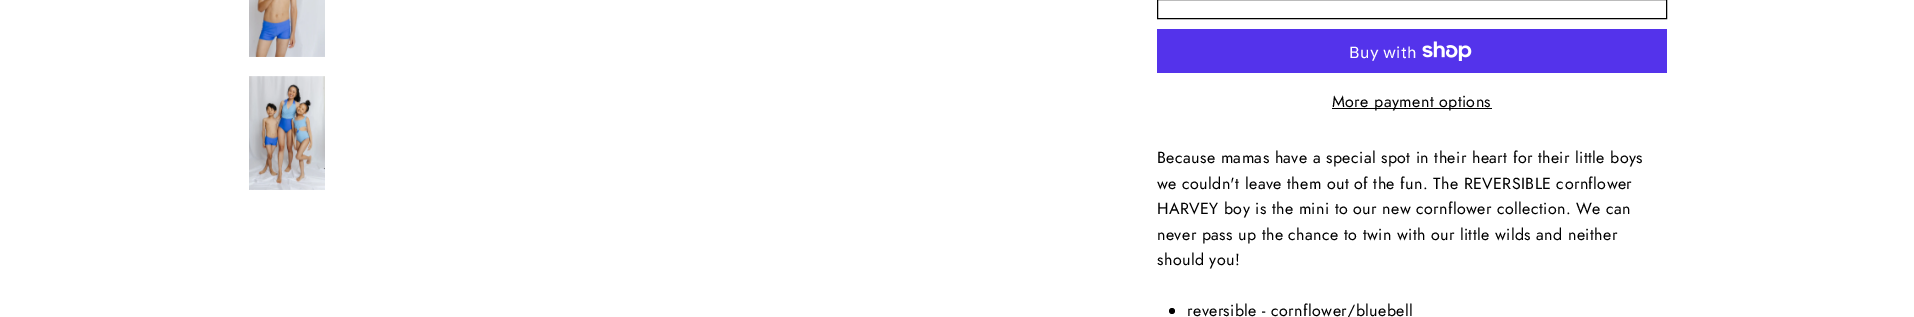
%!PS
<< /PageSize [1914 317] >> setpagedevice
/rgb { 3 { 255 div 3 1 roll } repeat setrgbcolor } def
/font { [ exch dup neg 0 0 3 -1 roll 0 0 ] selectfont } def
/circle { newpath 0 360 arc closepath } def
/picture { 5 dict begin { /h /w /y /x /name } { exch def } forall
  gsave x y translate w h scale
  w h 8 [w 0 0 h 0 0] name (r) file false 3 colorimage grestore end } def
0 317 translate 1 -1 scale
4 setmiterlimit
255 255 255 rgb
0 0 1914 317 rectfill
(img/1.rgb) 249 0 76 57 picture
(img/2.rgb) 249 76 76 114 picture
0 0 0 rgb
1157.5 -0.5 509 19 rectstroke
84 51 235 rgb
1157 29 510 44 rectfill
(img/3.rgb) 1422 41 50 20 picture
0 0 0 rgb
1332 108 160 1 rectfill
1172 311 3 circle fill
/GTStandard-Regular 16 font
255 255 255 rgb
1349 58 moveto 0.4 0 (Buy with) ashow
/Jost-Regular 16 font
0 0 0 rgb
1332 107 moveto 0.4 0 (More payment options) ashow
1157 163 moveto 0.4 0 (Because mamas have a special spot in their heart for their little boys) ashow
1157 189 moveto 0.4 0 (we couldn't leave them out of the fun. The REVERSIBLE cornflower) ashow
1157 214 moveto 0.4 0 (HARVEY boy is the mini to our new cornflower collection. We can) ashow
1157 240 moveto 0.4 0 (never pass up the chance to twin with our little wilds and neither) ashow
1157 265 moveto 0.4 0 (should you!) ashow
1187 316 moveto 0.4 0 (reversible - cornflower/bluebell) ashow
showpage
